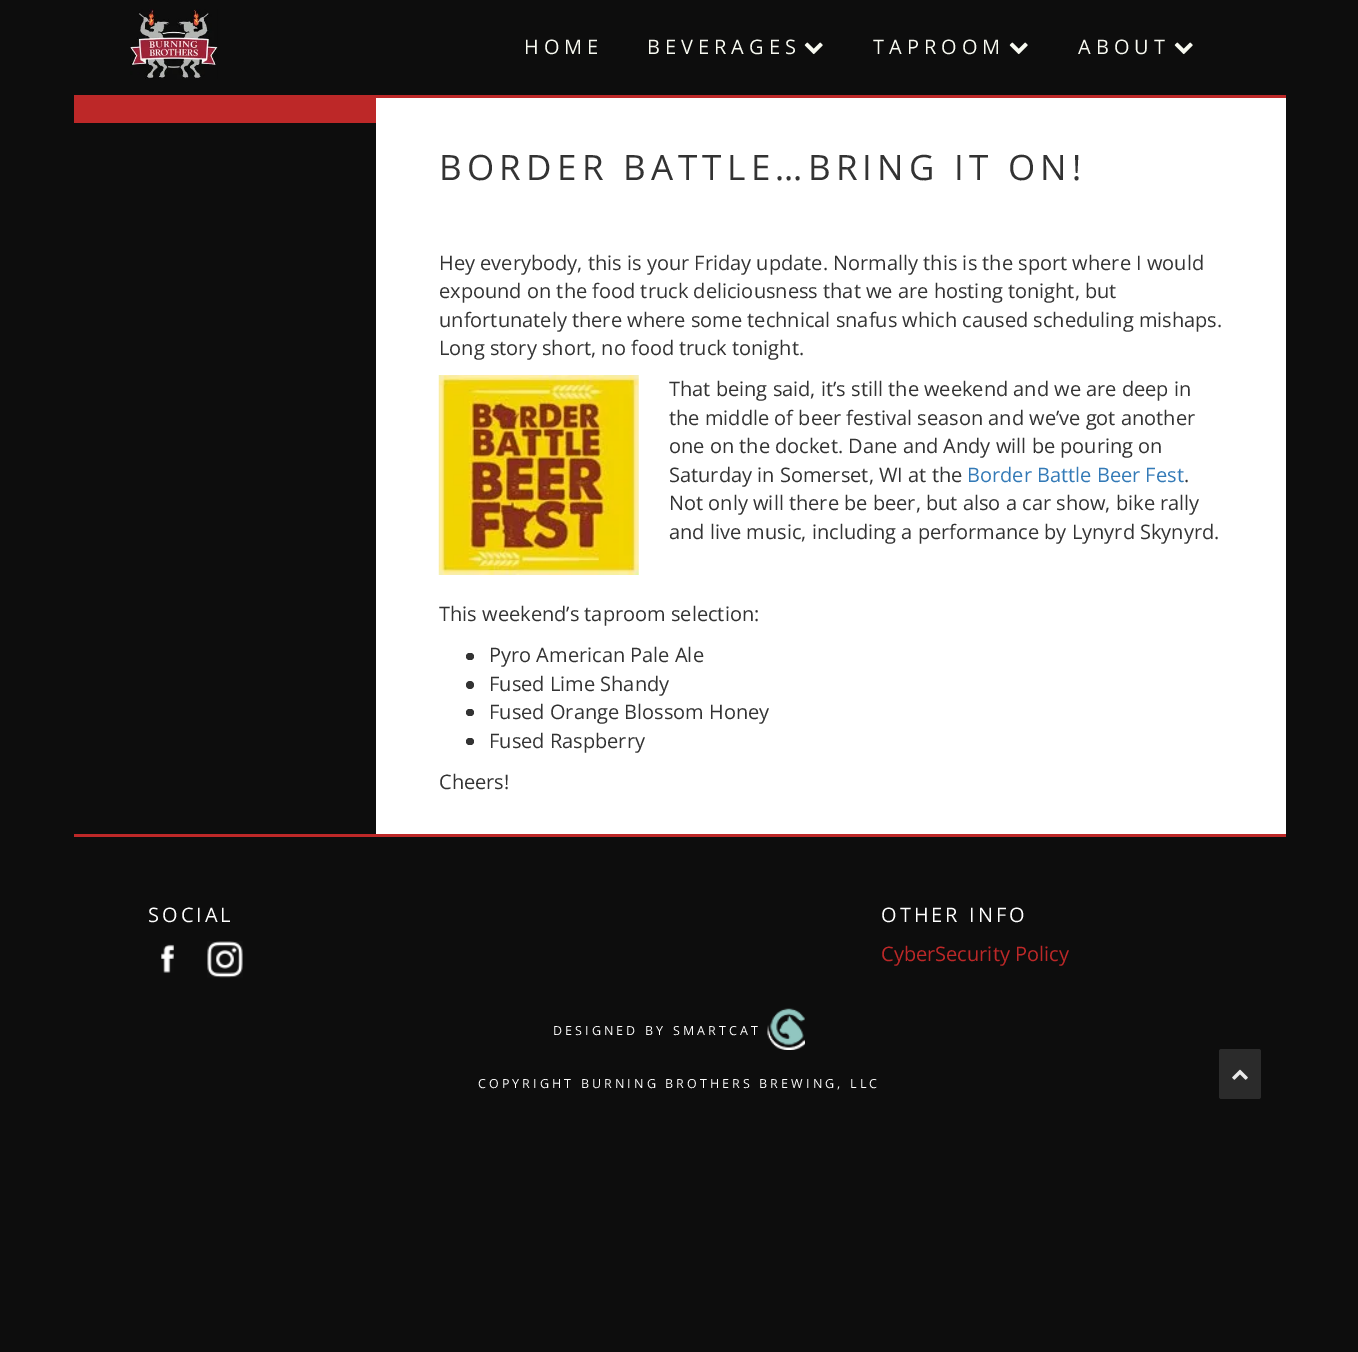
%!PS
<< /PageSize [1358 1352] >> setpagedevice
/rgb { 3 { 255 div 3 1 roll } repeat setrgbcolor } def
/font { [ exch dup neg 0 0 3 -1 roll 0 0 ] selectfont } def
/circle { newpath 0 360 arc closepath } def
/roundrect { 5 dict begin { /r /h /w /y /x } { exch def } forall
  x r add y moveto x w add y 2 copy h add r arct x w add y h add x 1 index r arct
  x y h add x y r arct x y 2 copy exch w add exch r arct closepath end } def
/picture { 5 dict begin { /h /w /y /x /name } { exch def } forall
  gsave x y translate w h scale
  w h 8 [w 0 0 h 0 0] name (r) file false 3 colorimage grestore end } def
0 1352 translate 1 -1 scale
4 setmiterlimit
13 13 13 rgb
0 0 1358 1352 rectfill
189 40 40 rgb
74 95 1212 3 rectfill
(img/1.rgb) 130 9 88 70 picture
(img/2.rgb) 804 42 19 13 picture
(img/2.rgb) 1009 42 19 13 picture
(img/2.rgb) 1174 42 19 13 picture
74 98 302 25 rectfill
255 255 255 rgb
376 98 910 736 rectfill
(img/3.rgb) 438 375 201 200 picture
51 51 51 rgb
466 653 8 7 3.5 roundrect fill
470 685 4 circle fill
466 709 8 7 3.5 roundrect fill
466 738 8 7 3.5 roundrect fill
189 40 40 rgb
74 834 1212 3 rectfill
(img/4.rgb) 161 944 13 29 picture
(img/5.rgb) 207 941 36 37 picture
(img/6.rgb) 767 1008 38 42 picture
43 43 43 rgb
1219 1049 42 50 2.5 roundrect fill
(img/7.rgb) 1232 1069 16 11 picture
/OpenSans-Regular 20 font
248 250 241 rgb
524 54 moveto 5 0 (HOME) ashow
647 54 moveto 5 0 (BEVERAGES) ashow
873 54 moveto 5 0 (TAPROOM) ashow
1078 54 moveto 5 0 (ABOUT) ashow
/OpenSans-Regular 35 font
51 51 51 rgb
439 180 moveto 5.25 0 (BORDER BATTLE…BRING IT ON!) ashow
/OpenSans-Regular 20 font
[
  [(Hey everybody, this is your Friday update. Normally this is the sport where I would) 439 270]
  [(expound on the food truck deliciousness that we are hosting tonight, but) 439 298]
  [(unfortunately there where some technical snafus which caused scheduling mishaps.) 439 327]
  [(Long story short, no food truck tonight.) 439 355]
  [(That being said, it’s still the weekend and we are deep in) 669 396]
  [(the middle of beer festival season and we’ve got another) 669 425]
  [(one on the docket. Dane and Andy will be pouring on) 669 453]
  [(Saturday in Somerset, WI at the) 669 482]
] { aload pop moveto show } forall
51 122 183 rgb
967 482 moveto (Border Battle Beer Fest) show
51 51 51 rgb
[
  [(.) 1184 482]
  [(Not only will there be beer, but also a car show, bike rally) 669 510]
  [(and live music, including a performance by Lynyrd Skynyrd.) 669 539]
  [(This weekend’s taproom selection:) 439 621]
  [(Pyro American Pale Ale) 489 662]
  [(Fused Lime Shandy) 489 691]
  [(Fused Orange Blossom Honey) 489 719]
  [(Fused Raspberry) 489 748]
  [(Cheers!) 439 789]
] { aload pop moveto show } forall
255 255 255 rgb
148 922 moveto 3 0 (SOCIAL) ashow
881 922 moveto 3 0 (OTHER INFO) ashow
189 40 40 rgb
881 961 moveto (CyberSecurity Policy) show
/OpenSans-Regular 12.5 font
255 255 255 rgb
553 1035 moveto 3.1 0 (DESIGNED BY SMARTCAT) ashow
478 1088 moveto 3.1 0 (COPYRIGHT BURNING BROTHERS BREWING, LLC) ashow
showpage
